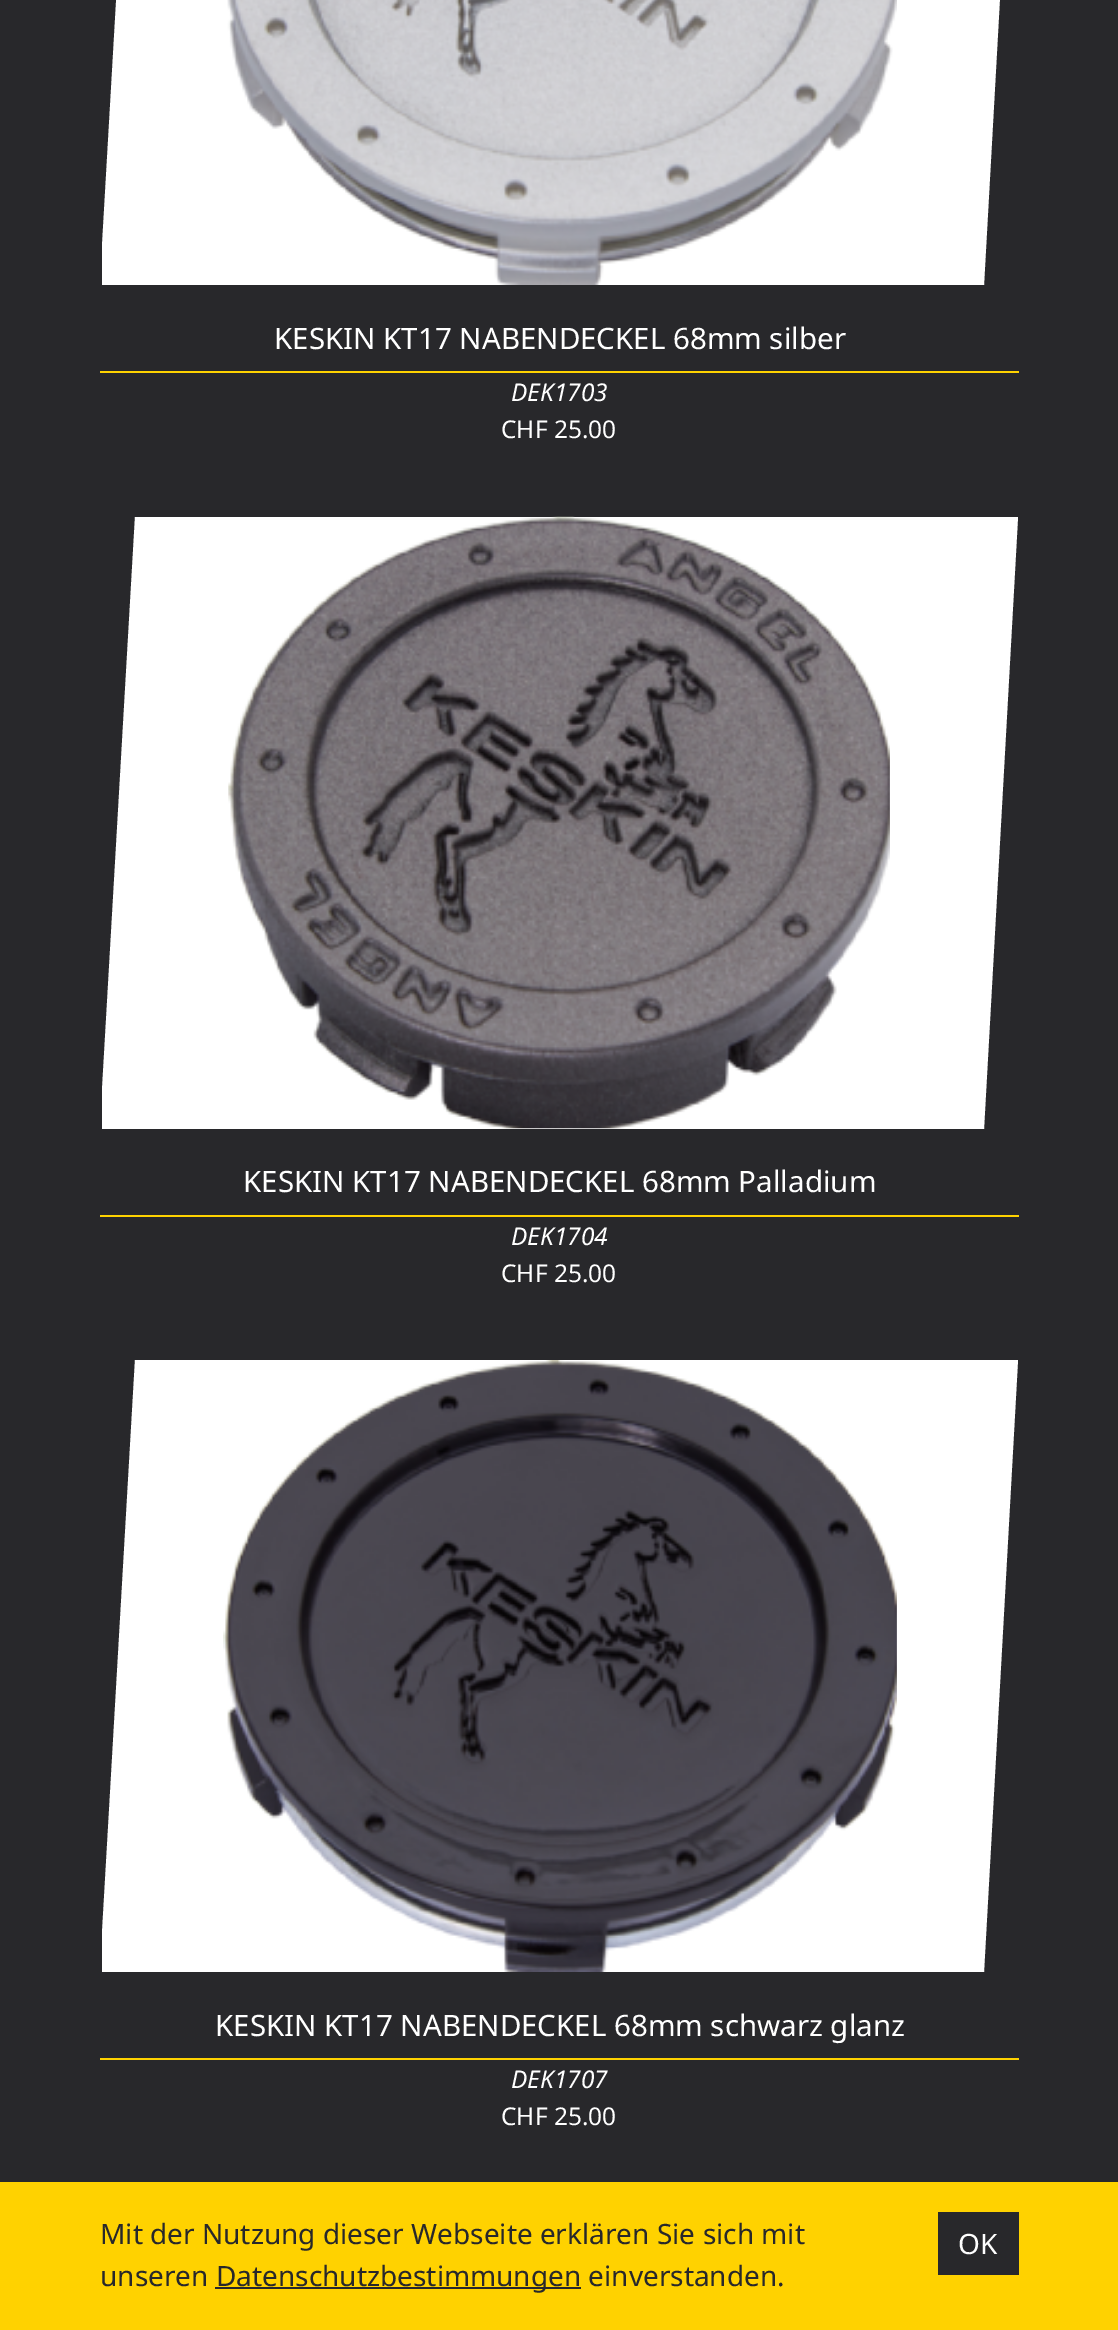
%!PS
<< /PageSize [1118 2330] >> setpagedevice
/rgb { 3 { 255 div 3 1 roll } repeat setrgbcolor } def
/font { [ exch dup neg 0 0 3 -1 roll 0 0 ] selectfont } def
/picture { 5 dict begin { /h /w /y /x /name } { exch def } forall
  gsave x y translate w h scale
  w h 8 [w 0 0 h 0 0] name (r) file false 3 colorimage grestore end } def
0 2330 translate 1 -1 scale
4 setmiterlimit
40 40 43 rgb
0 0 1118 2330 rectfill
255 255 255 rgb
135 -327 moveto 1018 -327 lineto 984 285 lineto 102 285 lineto 102 246 lineto closepath fill
(img/1.rgb) 227 0 670 285 picture
255 210 0 rgb
100 371 919 2 rectfill
255 255 255 rgb
135 517 moveto 1018 517 lineto 984 1129 lineto 102 1129 lineto 102 1090 lineto closepath fill
(img/2.rgb) 228 516 662 613 picture
255 210 0 rgb
100 1215 919 2 rectfill
255 255 255 rgb
135 1360 moveto 1018 1360 lineto 984 1972 lineto 102 1972 lineto 102 1933 lineto closepath fill
(img/3.rgb) 223 1360 674 612 picture
[
  [100 2058 919 2 255 210 0]
  [0 2182 1118 148 255 210 0]
  [215 2287 366 2 40 40 43]
  [938 2212 81 63 40 40 43]
] { aload pop rgb rectfill } forall
/NotoSans-Regular 29.5 font
255 255 255 rgb
274 349 moveto (KESKIN KT17 NABENDECKEL 68mm silber) show
/NotoSans-Italic 24.5 font
511 401 moveto (DEK1703) show
/NotoSans-Regular 24.5 font
501 438 moveto (CHF 25.00) show
/NotoSans-Regular 29.5 font
243 1192 moveto (KESKIN KT17 NABENDECKEL 68mm Palladium) show
/NotoSans-Italic 24.5 font
511 1245 moveto (DEK1704) show
/NotoSans-Regular 24.5 font
501 1282 moveto (CHF 25.00) show
/NotoSans-Regular 29.5 font
215 2036 moveto (KESKIN KT17 NABENDECKEL 68mm schwarz glanz) show
/NotoSans-Italic 24.5 font
511 2088 moveto (DEK1707) show
/NotoSans-Regular 24.5 font
501 2125 moveto (CHF 25.00) show
/NotoSans-Regular 28 font
40 40 43 rgb
[
  [(Mit der Nutzung dieser Webseite erklären Sie sich mit) 100 2244]
  [(unseren) 100 2286]
  [(Datenschutzbestimmungen einverstanden.) 216 2286]
] { aload pop moveto show } forall
255 255 255 rgb
958 2254 moveto (OK) show
showpage
